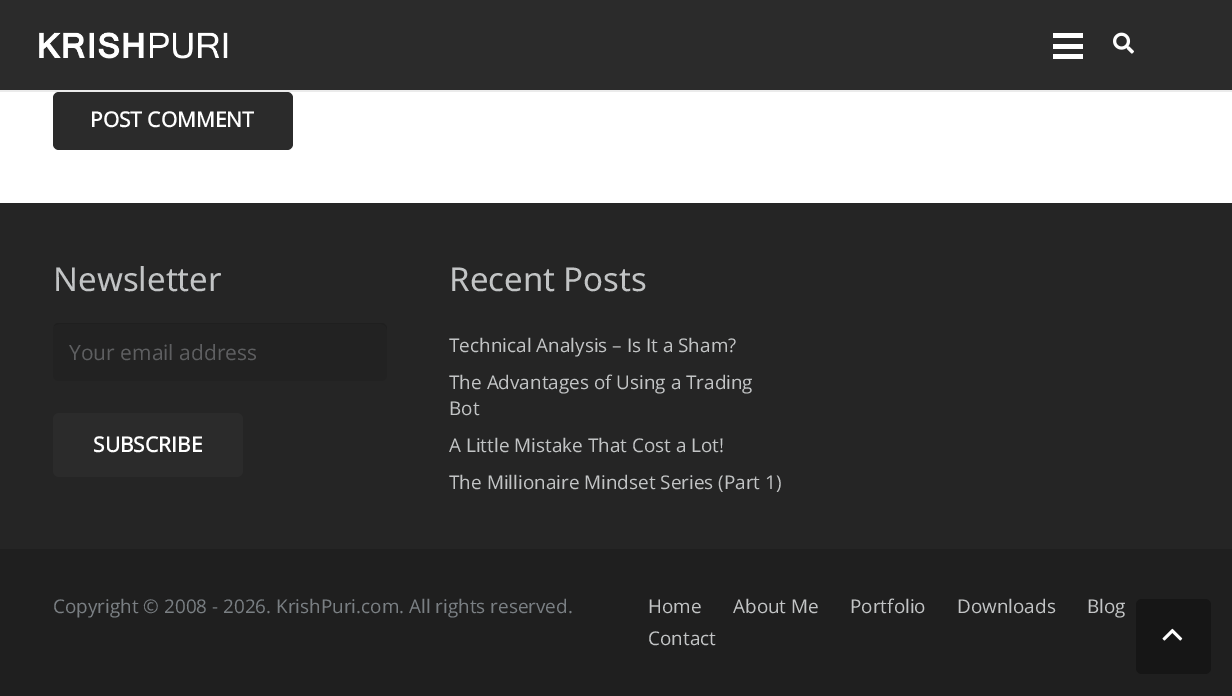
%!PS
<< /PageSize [1232 696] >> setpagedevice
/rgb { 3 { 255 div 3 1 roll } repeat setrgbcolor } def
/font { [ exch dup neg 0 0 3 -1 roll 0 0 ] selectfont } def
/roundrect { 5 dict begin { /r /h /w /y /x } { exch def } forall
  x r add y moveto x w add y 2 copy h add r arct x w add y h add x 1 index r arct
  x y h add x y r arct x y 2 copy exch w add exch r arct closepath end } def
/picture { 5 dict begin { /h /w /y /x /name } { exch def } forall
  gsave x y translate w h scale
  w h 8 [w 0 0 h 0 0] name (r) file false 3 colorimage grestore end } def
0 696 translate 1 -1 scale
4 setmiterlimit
255 255 255 rgb
0 0 1232 696 rectfill
235 235 235 rgb
0 90 1232 2 rectfill
43 43 43 rgb
0 0 1232 90 rectfill
(img/1.rgb) 39 32 189 27 picture
[
  [1053 44 30 5 255 255 255]
  [1053 33 30 5 255 255 255]
  [1053 54 30 5 255 255 255]
] { aload pop rgb rectfill } forall
(img/2.rgb) 1113 32 21 22 picture
43 43 43 rgb
53 92 240 58 6 roundrect fill
37 37 37 rgb
0 203 1232 346 rectfill
34 34 34 rgb
53 323 334 58 6 roundrect fill
31 31 31 rgb
59 324 moveto 381 324 lineto 384 324 387 327 387 330 curveto 387 329 lineto 387 326 384 323 381 323 curveto 59 323 lineto 57 323 55 324 54 326 curveto 55 325 57 324 59 324 curveto closepath fill
43 43 43 rgb
53 413 190 64 6 roundrect fill
31 31 31 rgb
0 549 1232 147 rectfill
22 22 22 rgb
1136 599 75 75 6 roundrect fill
(img/3.rgb) 1162 628 21 13 picture
/OpenSans-Bold 21 font
255 255 255 rgb
90 127 moveto (POST COMMENT) show
/NotoSans-Regular 33 font
194 196 197 rgb
53 291 moveto (Newsletter) show
/OpenSans-Regular 21 font
94 95 97 rgb
69 360 moveto (Your email address) show
/OpenSans-Bold 21 font
255 255 255 rgb
93 452 moveto (SUBSCRIBE) show
/NotoSans-Regular 33 font
194 196 197 rgb
449 291 moveto (Recent Posts) show
/OpenSans-Regular 18.9 font
[
  [(Technical Analysis – Is It a Sham?) 449 352]
  [(The Advantages of Using a Trading) 449 389]
  [(Bot) 449 415]
  [(A Little Mistake That Cost a Lot!) 449 452]
  [(The Millionaire Mindset Series \(Part 1\)) 449 489]
] { aload pop moveto show } forall
122 127 131 rgb
53 613 moveto (Copyright © 2008 - 2026. KrishPuri.com. All rights reserved.) show
194 196 197 rgb
[
  [(Home) 648 613]
  [(About Me) 733 613]
  [(Portfolio) 850 613]
  [(Downloads) 957 613]
  [(Blog) 1087 613]
  [(Contact) 648 645]
] { aload pop moveto show } forall
showpage
